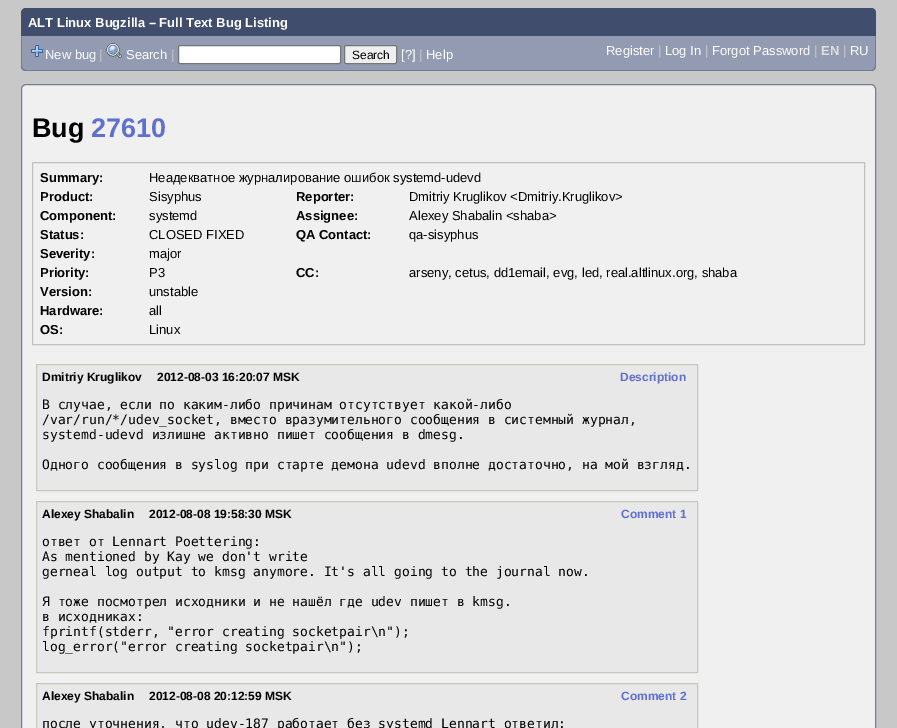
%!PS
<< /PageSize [897 728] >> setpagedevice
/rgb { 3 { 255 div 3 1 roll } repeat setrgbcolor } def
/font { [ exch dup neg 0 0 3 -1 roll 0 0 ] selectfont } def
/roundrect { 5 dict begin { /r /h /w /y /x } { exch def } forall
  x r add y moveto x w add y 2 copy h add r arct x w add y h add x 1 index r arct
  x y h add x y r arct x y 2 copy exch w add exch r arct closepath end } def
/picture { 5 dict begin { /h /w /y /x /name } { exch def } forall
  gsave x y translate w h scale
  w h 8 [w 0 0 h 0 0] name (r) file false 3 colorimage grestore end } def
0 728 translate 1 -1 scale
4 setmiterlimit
200 200 200 rgb
0 0 897 728 rectfill
64 77 108 rgb
26 8 moveto 871 8 lineto 874 8 876 10 876 13 curveto 876 36 lineto 21 36 lineto 21 13 lineto 21 10 23 8 26 8 curveto closepath fill
146 155 177 rgb
21 36 moveto 876 36 lineto 876 66 lineto 876 69 874 71 871 71 curveto 26 71 lineto 23 71 21 69 21 66 curveto closepath fill
116 126 147 rgb
21 36 moveto 876 36 lineto 876 66 lineto 876 69 874 71 871 71 curveto 26 71 lineto 23 71 21 69 21 66 curveto closepath 22 36 moveto 875 36 lineto 875 66 lineto 875 68 873 70 871 70 curveto 26 70 lineto 24 70 22 68 22 66 curveto closepath eofill
(img/1.rgb) 31 45 12 12 picture
(img/2.rgb) 106 43 16 15 picture
255 255 255 rgb
178.5 45.5 162 18 1.5 roundrect gsave fill grestore
118 118 118 rgb
stroke
239 239 239 rgb
344.5 45.5 52 18 1.5 roundrect gsave fill grestore
118 118 118 rgb
stroke
240 240 240 rgb
21.5 84.5 854 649 4.5 roundrect gsave fill grestore
116 126 147 rgb
stroke
192 192 192 rgb
32.5 162.5 832 182 rectstroke
232 232 232 rgb
36.5 364.5 moveto 697.5 364.5 lineto 697.5 490.5 lineto 36.5 490.5 lineto closepath gsave fill grestore
200 200 186 rgb
stroke
232 232 232 rgb
36.5 501.5 moveto 697.5 501.5 lineto 697.5 672.5 lineto 36.5 672.5 lineto closepath gsave fill grestore
200 200 186 rgb
stroke
232 232 232 rgb
36.5 683.5 moveto 697.5 683.5 lineto 697.5 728.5 lineto 36.5 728.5 lineto closepath gsave fill grestore
200 200 186 rgb
stroke
/LiberationSans-Bold 13 font
255 255 255 rgb
28 27 moveto (ALT Linux Bugzilla – Full Text Bug Listing) show
/LiberationSans-Regular 13 font
45 59 moveto (New bug) show
204 204 204 rgb
99 59 moveto (|) show
255 255 255 rgb
126 59 moveto (Search) show
204 204 204 rgb
171 59 moveto (|) show
/LiberationSans-Regular 12 font
0 0 0 rgb
352 59 moveto (Search) show
/LiberationSans-Regular 13 font
255 255 255 rgb
401 59 moveto ([?]) show
204 204 204 rgb
419 59 moveto (|) show
255 255 255 rgb
426 59 moveto (Help) show
606 55 moveto (Register) show
204 204 204 rgb
658 55 moveto (|) show
255 255 255 rgb
665 55 moveto (Log In) show
204 204 204 rgb
705 55 moveto (|) show
255 255 255 rgb
712 55 moveto (Forgot Password) show
204 204 204 rgb
814 55 moveto (|) show
/LiberationSans-Bold 13 font
221 221 221 rgb
821 55 moveto (EN) show
/LiberationSans-Regular 13 font
204 204 204 rgb
843 55 moveto (|) show
255 255 255 rgb
850 55 moveto (RU) show
/LiberationSans-Bold 27 font
0 0 0 rgb
32 137 moveto (Bug) show
96 112 207 rgb
91 137 moveto (27610) show
/LiberationSans-Bold 13 font
0 0 0 rgb
40 182 moveto (Summary:) show
/LiberationSans-Regular 13 font
149 182 moveto (Неадекватное журналирование ошибок systemd-udevd) show
/LiberationSans-Bold 13 font
40 201 moveto (Product:) show
/LiberationSans-Regular 13 font
149 201 moveto (Sisyphus) show
/LiberationSans-Bold 13 font
296 201 moveto (Reporter:) show
/LiberationSans-Regular 13 font
409 201 moveto (Dmitriy Kruglikov <Dmitriy.Kruglikov>) show
/LiberationSans-Bold 13 font
40 220 moveto (Component:) show
/LiberationSans-Regular 13 font
149 220 moveto (systemd) show
/LiberationSans-Bold 13 font
296 220 moveto (Assignee:) show
/LiberationSans-Regular 13 font
409 220 moveto (Alexey Shabalin <shaba>) show
/LiberationSans-Bold 13 font
40 239 moveto (Status:) show
/LiberationSans-Regular 13 font
149 239 moveto (CLOSED FIXED) show
/LiberationSans-Bold 13 font
296 239 moveto (QA Contact:) show
/LiberationSans-Regular 13 font
409 239 moveto (qa-sisyphus) show
/LiberationSans-Bold 13 font
40 258 moveto (Severity:) show
/LiberationSans-Regular 13 font
149 258 moveto (major) show
/LiberationSans-Bold 13 font
40 277 moveto (Priority:) show
/LiberationSans-Regular 13 font
149 277 moveto (P3) show
/LiberationSans-Bold 13 font
296 277 moveto (CC:) show
/LiberationSans-Regular 13 font
409 277 moveto (arseny, cetus, dd1email, evg, led, real.altlinux.org, shaba) show
/LiberationSans-Bold 13 font
40 296 moveto (Version:) show
/LiberationSans-Regular 13 font
149 296 moveto (unstable) show
/LiberationSans-Bold 13 font
40 315 moveto (Hardware:) show
/LiberationSans-Regular 13 font
149 315 moveto (all) show
/LiberationSans-Bold 13 font
40 334 moveto (OS:) show
/LiberationSans-Regular 13 font
149 334 moveto (Linux) show
/LiberationSans-Bold 12 font
42 381 moveto (Dmitriy Kruglikov) show
157 381 moveto (2012-08-03 16:20:07 MSK) show
96 112 207 rgb
620 381 moveto (Description) show
/DejaVuSansMono-Regular 13 font
0 0 0 rgb
[
  [(В случае, если по каким-либо причинам отсутствует какой-либо) 42 409]
  [(/var/run/*/udev_socket, вместо вразумительного сообщения в системный журнал,) 42 424]
  [(systemd-udevd излишне активно пишет сообщения в dmesg.) 42 439]
  [(Одного сообщения в syslog при старте демона udevd вполне достаточно, на мой взгляд.) 42 469]
] { aload pop moveto show } forall
/LiberationSans-Bold 12 font
42 518 moveto (Alexey Shabalin) show
149 518 moveto (2012-08-08 19:58:30 MSK) show
96 112 207 rgb
621 518 moveto (Comment 1) show
/DejaVuSansMono-Regular 13 font
0 0 0 rgb
[
  [(ответ от Lennart Poettering:) 42 546]
  [(As mentioned by Kay we don't write) 42 561]
  [(gerneal log output to kmsg anymore. It's all going to the journal now.) 42 576]
  [(Я тоже посмотрел исходники и не нашёл где udev пишет в kmsg.) 42 606]
  [(в исходниках:) 42 621]
  [(fprintf\(stderr, "error creating socketpair\\n"\);) 42 636]
  [(log_error\("error creating socketpair\\n"\);) 42 651]
] { aload pop moveto show } forall
/LiberationSans-Bold 12 font
42 700 moveto (Alexey Shabalin) show
149 700 moveto (2012-08-08 20:12:59 MSK) show
96 112 207 rgb
621 700 moveto (Comment 2) show
/DejaVuSansMono-Regular 13 font
0 0 0 rgb
42 728 moveto (после уточнения, что udev-187 работает без systemd Lennart ответил:) show
showpage
